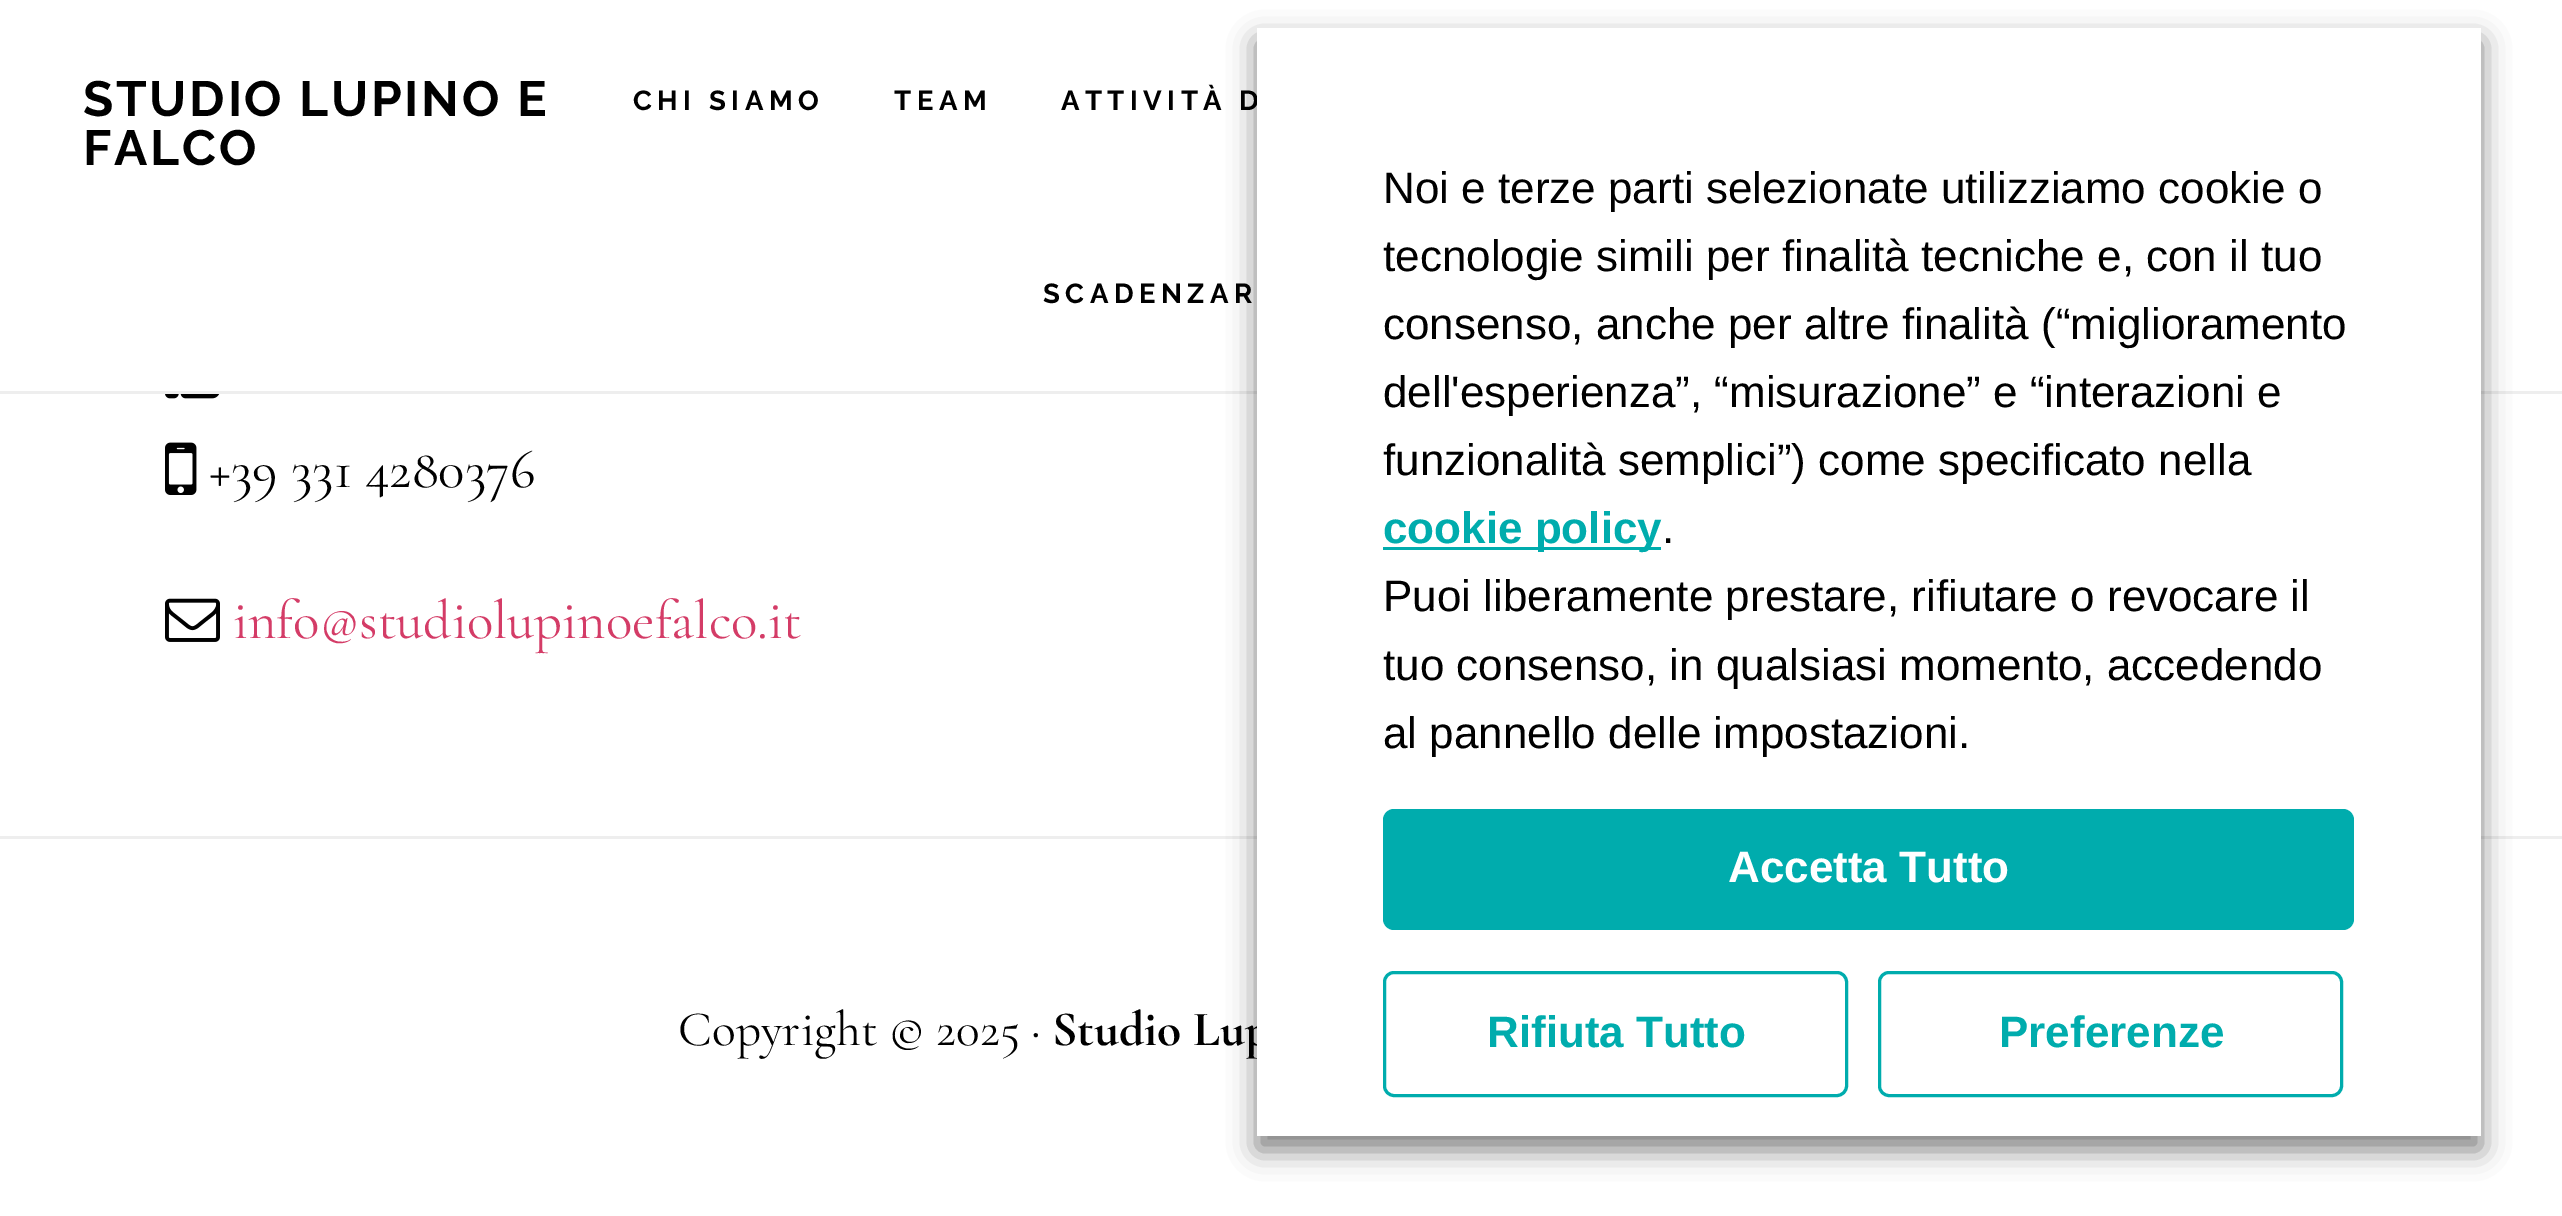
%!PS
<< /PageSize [2562 1216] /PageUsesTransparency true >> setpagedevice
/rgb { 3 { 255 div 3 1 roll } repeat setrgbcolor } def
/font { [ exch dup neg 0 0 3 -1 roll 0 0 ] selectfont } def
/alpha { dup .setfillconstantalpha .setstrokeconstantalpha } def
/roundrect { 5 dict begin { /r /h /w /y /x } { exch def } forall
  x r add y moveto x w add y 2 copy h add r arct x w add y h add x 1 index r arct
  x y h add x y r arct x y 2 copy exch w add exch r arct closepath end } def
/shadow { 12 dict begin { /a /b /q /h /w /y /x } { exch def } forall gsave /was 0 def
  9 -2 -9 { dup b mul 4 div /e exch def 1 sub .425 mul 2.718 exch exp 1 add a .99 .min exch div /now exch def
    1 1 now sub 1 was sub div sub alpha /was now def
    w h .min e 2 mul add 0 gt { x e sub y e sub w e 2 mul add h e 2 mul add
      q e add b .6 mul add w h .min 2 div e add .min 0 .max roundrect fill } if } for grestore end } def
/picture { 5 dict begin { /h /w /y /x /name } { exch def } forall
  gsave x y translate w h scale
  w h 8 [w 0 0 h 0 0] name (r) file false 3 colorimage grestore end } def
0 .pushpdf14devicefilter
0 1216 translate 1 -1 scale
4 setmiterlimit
255 255 255 rgb
0 0 2562 1216 rectfill
238 238 238 rgb
0 391 2562 3 rectfill
(img/1.rgb) 165 394 55 5 picture
(img/2.rgb) 165 442 32 53 picture
(img/3.rgb) 165 598 55 44 picture
0 836 2562 3 rectfill
0 0 0 rgb
1257 41 1224 1109 0 14 0.5 shadow
/Raleway-Bold 49.5 font
83 116 moveto 2.75 0 (STUDIO LUPINO E) ashow
83 165 moveto 2.75 0 (FALCO) ashow
/Raleway-Bold 27.5 font
633 110 moveto 5.5 0 (CHI SIAMO) ashow
894 110 moveto 5.5 0 (TEAM) ashow
1061 110 moveto 5.5 0 (ATTIVITÀ D) ashow
1043 303 moveto 5.5 0 (SCADENZAR) ashow
/CormorantGaramond-Regular 55 font
209 487 moveto (+39 331 4280376) show
212 60 103 rgb
233 638 moveto (info@studiolupinoefalco.it) show
/CormorantGaramond-Regular 49.5 font
0 0 0 rgb
678 1045 moveto (Copyright © 2025 ·) show
/CormorantGaramond-Bold 49.5 font
1052 1045 moveto (Studio Lup) show
255 255 255 rgb
1257 28 1224 1108 rectfill
/LiberationSans-Regular 44 font
0 0 0 rgb
[
  [(Noi e terze parti selezionate utilizziamo cookie o) 1383 203]
  [(tecnologie simili per finalità tecniche e, con il tuo) 1383 271]
  [(consenso, anche per altre finalità \(“miglioramento) 1383 339]
  [(dell'esperienza”, “misurazione” e “interazioni e) 1383 407]
  [(funzionalità semplici”\) come specificato nella) 1383 475]
] { aload pop moveto show } forall
0 172 173 rgb
1383 547 278 3 rectfill
/LiberationSans-Bold 44 font
1383 543 moveto (cookie policy) show
/LiberationSans-Regular 44 font
0 0 0 rgb
[
  [(.) 1662 543]
  [(Puoi liberamente prestare, rifiutare o revocare il) 1383 611]
  [(tuo consenso, in qualsiasi momento, accedendo) 1383 680]
  [(al pannello delle impostazioni.) 1383 748]
] { aload pop moveto show } forall
0 172 173 rgb
1383 809 971 121 11 roundrect fill
/LiberationSans-Bold 44 font
255 255 255 rgb
1728 882 moveto (Accetta Tutto) show
0 172 173 rgb
3 setlinewidth
1384.5 972.5 462 123 9.5 roundrect stroke
1487 1047 moveto (Rifiuta Tutto) show
1879.5 972.5 462 123 9.5 roundrect stroke
1999 1047 moveto (Preferenze) show
.poppdf14devicefilter showpage
